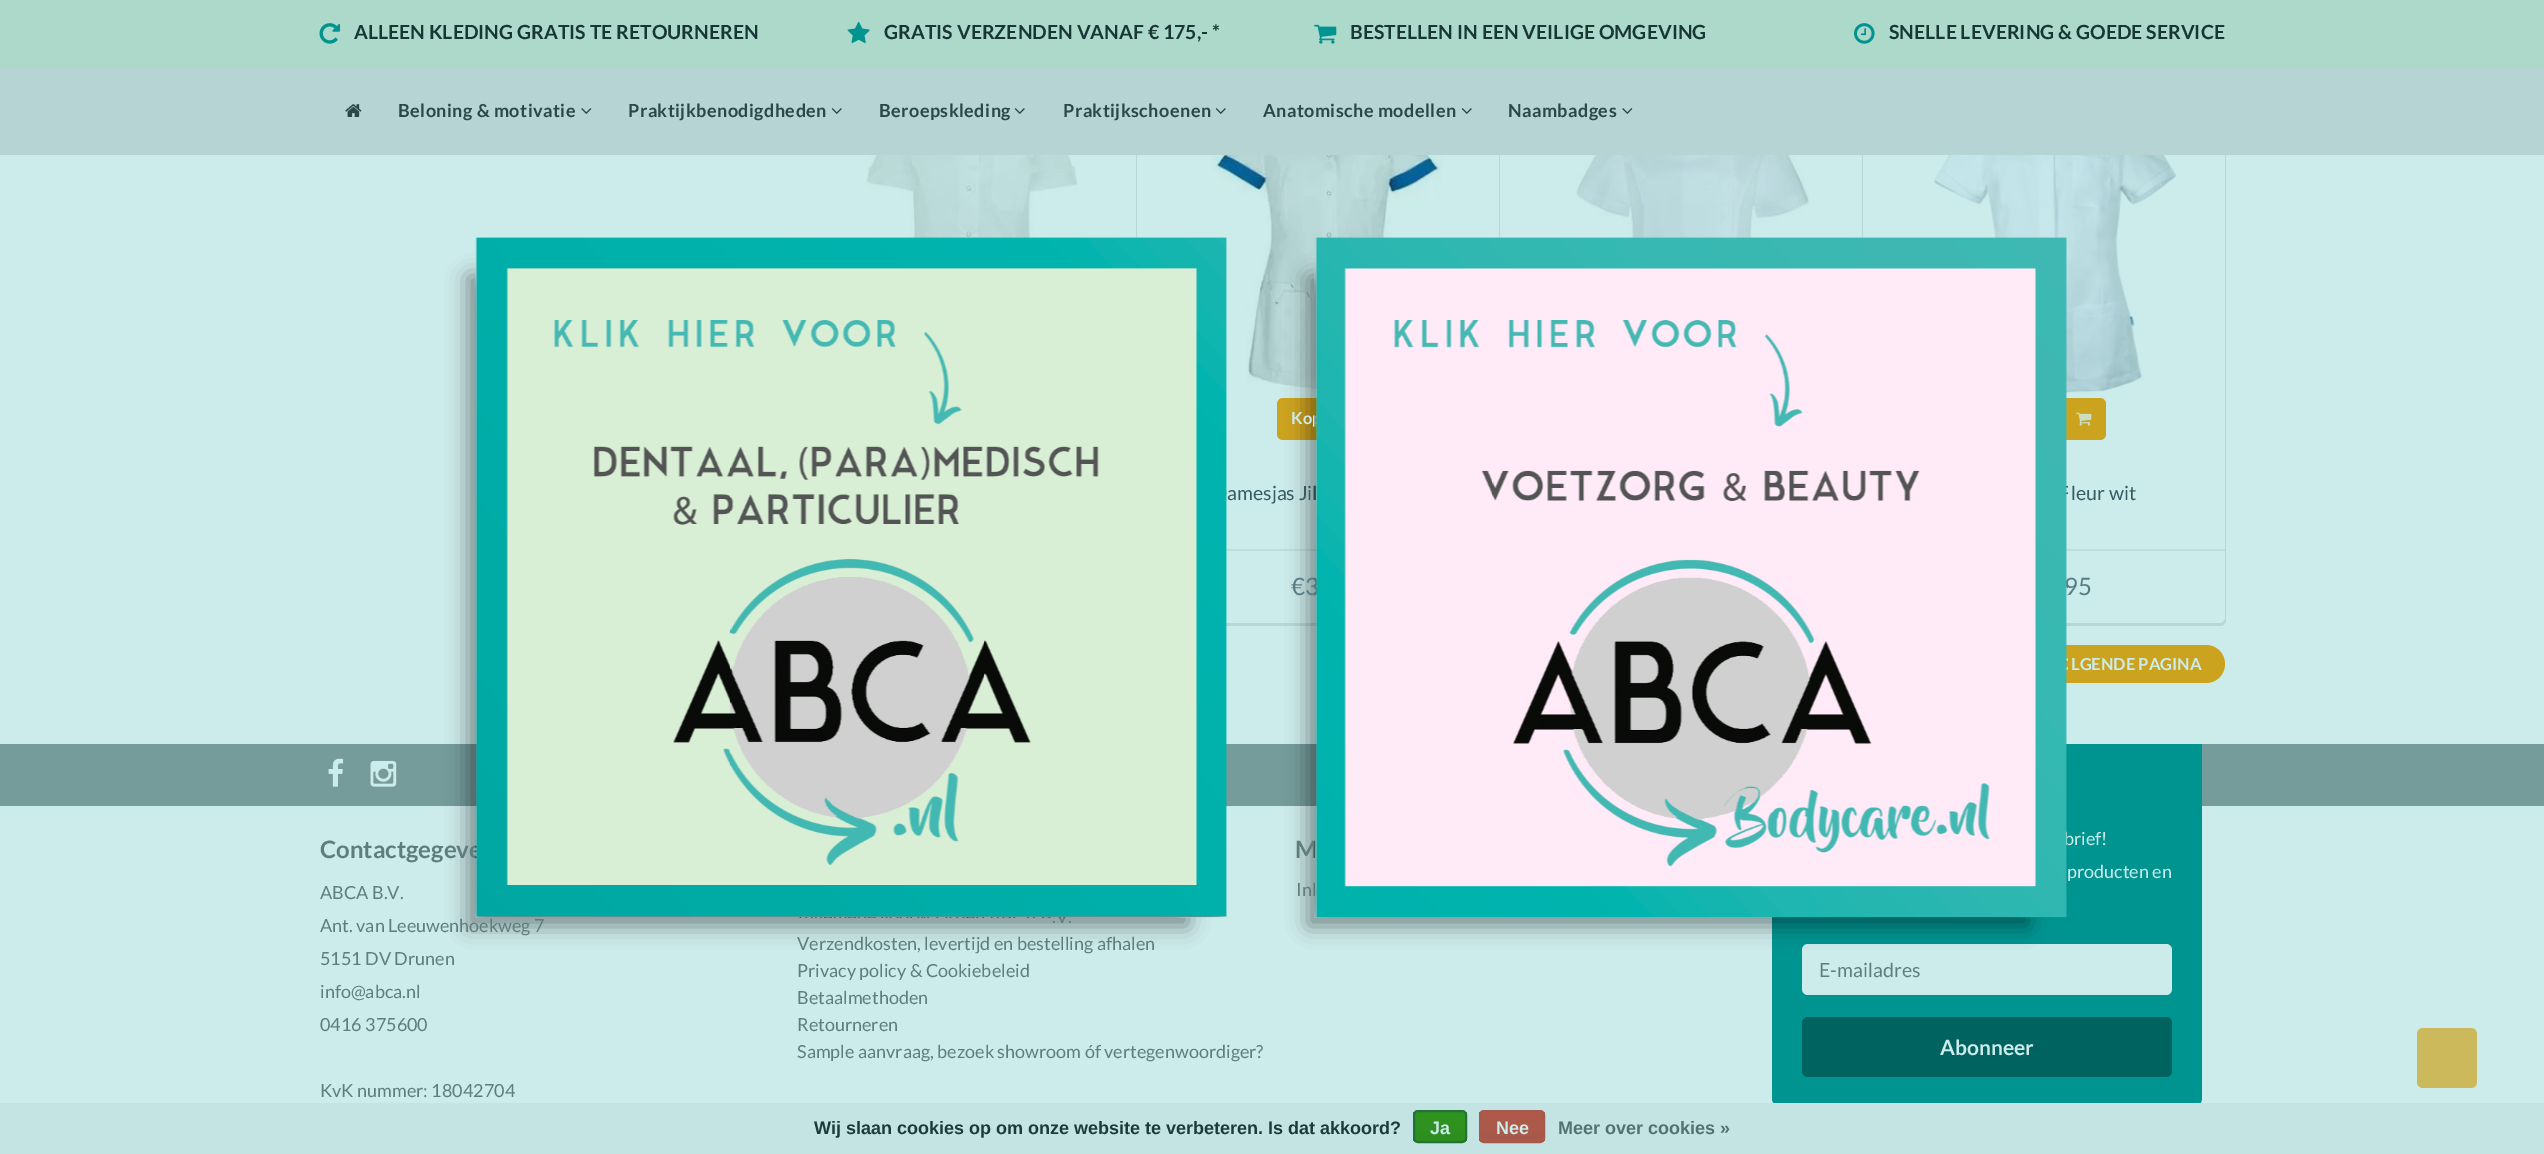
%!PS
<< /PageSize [2544 1154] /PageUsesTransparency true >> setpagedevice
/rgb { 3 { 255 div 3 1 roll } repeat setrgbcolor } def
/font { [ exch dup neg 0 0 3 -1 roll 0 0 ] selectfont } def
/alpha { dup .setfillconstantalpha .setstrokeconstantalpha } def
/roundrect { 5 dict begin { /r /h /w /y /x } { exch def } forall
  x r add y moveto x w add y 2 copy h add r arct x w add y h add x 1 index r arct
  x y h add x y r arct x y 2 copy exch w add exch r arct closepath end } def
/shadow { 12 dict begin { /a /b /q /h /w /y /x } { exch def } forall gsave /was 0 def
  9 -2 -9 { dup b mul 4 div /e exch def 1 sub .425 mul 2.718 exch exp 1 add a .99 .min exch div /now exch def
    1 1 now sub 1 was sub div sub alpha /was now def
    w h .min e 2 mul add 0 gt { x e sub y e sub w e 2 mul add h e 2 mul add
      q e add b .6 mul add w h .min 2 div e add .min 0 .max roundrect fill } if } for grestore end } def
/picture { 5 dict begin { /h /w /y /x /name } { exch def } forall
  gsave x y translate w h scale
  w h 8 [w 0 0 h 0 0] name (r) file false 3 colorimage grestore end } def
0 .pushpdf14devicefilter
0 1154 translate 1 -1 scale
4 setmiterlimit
204 235 235 rgb
0 0 2544 1154 rectfill
173 217 203 rgb
0 0 2544 68 rectfill
(img/1.rgb) 319 23 22 21 picture
(img/2.rgb) 847 21 23 23 picture
(img/3.rgb) 1314 24 23 20 picture
(img/4.rgb) 1854 23 21 21 picture
183 214 214 rgb
798 620 moveto 798 624 801 626 804 626 curveto 1131 626 lineto 1134 626 1137 623 1137 620 curveto 1137 77 lineto 1137 75 1136 74 1135 73 curveto 1136 616 lineto 1136 620 1133 622 1130 622 curveto 802 622 lineto 801 622 799 622 798 620 curveto closepath fill
1160 621 moveto 1161 624 1163 626 1166 626 curveto 1494 626 lineto 1497 626 1500 623 1500 620 curveto 1500 77 lineto 1500 75 1499 74 1498 73 curveto 1498 616 lineto 1498 620 1496 622 1492 622 curveto 1164 622 lineto 1163 622 1161 622 1160 621 curveto closepath fill
1523 621 moveto 1524 624 1526 626 1529 626 curveto 1857 626 lineto 1860 626 1863 623 1863 620 curveto 1863 77 lineto 1863 75 1862 74 1861 73 curveto 1862 616 lineto 1862 620 1859 622 1856 622 curveto 1527 622 lineto 1526 622 1524 622 1523 621 curveto closepath fill
1886 621 moveto 1887 624 1889 626 1892 626 curveto 2220 626 lineto 2223 626 2226 623 2226 620 curveto 2226 77 lineto 2226 75 2225 74 2224 73 curveto 2224 616 lineto 2224 620 2222 622 2218 622 curveto 1890 622 lineto 1889 622 1887 622 1886 621 curveto closepath fill
204 235 235 rgb
1884 68 341 555 6 roundrect fill
181 212 211 rgb
0 68 2544 87 rectfill
(img/5.rgb) 345 104 17 13 picture
(img/6.rgb) 581 108 11 6 picture
(img/7.rgb) 831 108 11 6 picture
(img/7.rgb) 1014 108 11 6 picture
(img/7.rgb) 1215 108 11 6 picture
(img/7.rgb) 1461 108 11 6 picture
(img/6.rgb) 1622 108 11 6 picture
204 235 235 rgb
1160 155 339 468 rectfill
(img/11.rgb) 1212 155 230 237 picture
117 155 155 rgb
0 744 2544 62 rectfill
0 0 0 rgb
468 276 720 650 0 10.5 0.4 shadow
204 163 31 rgb
1277 398 105 42 6 roundrect fill
190 221 221 rgb
1225 549 92 2 rectfill
(img/13.rgb) 1934 155 243 238 picture
204 163 31 rgb
2003 398 103 42 6 roundrect fill
2024 645 201 38 19 roundrect fill
0 148 145 rgb
1772 744 moveto 2202 744 lineto 2202 1098 lineto 2202 1103 2198 1107 2193 1107 curveto 1781 1107 lineto 1776 1107 1772 1103 1772 1098 curveto closepath fill
204 235 235 rgb
1802 944 370 51 6 roundrect fill
0 0 0 rgb
1308 276 720 650 0 10.5 0.4 shadow
204 235 235 rgb
1135 155 1 83 rectfill
(img/10.rgb) 866 155 212 83 picture
1861 155 1 83 rectfill
(img/12.rgb) 1576 155 233 83 picture
(img/14.rgb) 2076 412 16 14 picture
190 221 221 rgb
2065 549 160 2 rectfill
(img/15.rgb) 328 758 16 29 picture
(img/16.rgb) 370 760 27 27 picture
0 99 95 rgb
1802 1017 370 60 6 roundrect fill
204 185 92 rgb
2417 1028 60 60 6 roundrect fill
196 227 227 rgb
0 1103 2544 51 rectfill
gsave
1413 1110 54 33 5 roundrect clip newpath
gsave 1413 1112 moveto 1467 1112 lineto 1467 1142 lineto 1413 1142 lineto closepath clip newpath
<< /ShadingType 2 /ColorSpace /DeviceRGB /Coords [1440 1112 1440 1142] /Extend [true true] /Function << /FunctionType 2 /Domain [0 1] /C0 [0.188 0.584 0.122] /C1 [0.18 0.553 0.122] /N 1 >> >> shfill grestore
grestore
33 115 54 rgb
2 setlinewidth
1414 1111 52 31 4 roundrect stroke
gsave
1479 1110 66 33 5 roundrect clip newpath
gsave 1479 1112 moveto 1545 1112 lineto 1545 1142 lineto 1479 1142 lineto closepath clip newpath
<< /ShadingType 2 /ColorSpace /DeviceRGB /Coords [1512 1112 1512 1142] /Extend [true true] /Function << /FunctionType 2 /Domain [0 1] /C0 [0.69 0.353 0.294] /C1 [0.655 0.349 0.29] /N 1 >> >> shfill grestore
grestore
167 89 74 rgb
1480 1111 64 31 4 roundrect stroke
/Lato-Bold 19.5 font
23 54 52 rgb
[
  [(ALLEEN KLEDING GRATIS TE RETOURNEREN) 354 39]
  [(GRATIS VERZENDEN VANAF € 175,- *) 884 39]
  [(BESTELLEN IN EEN VEILIGE OMGEVING) 1350 39]
  [(SNELLE LEVERING & GOEDE SERVICE) 1889 39]
] { aload pop moveto show } forall
/Lato-Bold 18 font
41 72 71 rgb
398 117 moveto 0.45 0 (Beloning & motivatie) ashow
628 117 moveto 0.45 0 (Praktijkbenodigdheden) ashow
879 117 moveto 0.45 0 (Beroepskleding) ashow
1063 117 moveto 0.45 0 (Praktijkschoenen) ashow
1263 117 moveto 0.45 0 (Anatomische modellen) ashow
1508 117 moveto 0.45 0 (Naambadges) ashow
/Lato-Bold 16.5 font
204 235 235 rgb
1291 424 moveto (Kop) show
/Lato-Regular 19.5 font
54 90 98 rgb
1227 500 moveto (amesjas Jil) show
/Lato-Regular 24 font
87 125 135 rgb
1291 595 moveto (€3) show
/Lato-Regular 19.5 font
54 90 98 rgb
2071 500 moveto (leur wit) show
/Lato-Regular 24 font
87 125 135 rgb
2064 595 moveto (95) show
/Lato-Bold 16.5 font
204 235 235 rgb
2071 670 moveto (LGENDE PAGINA) show
/Lato-Bold 24 font
94 125 124 rgb
320 858 moveto (Contactgegeve) show
/Lato-Regular 18 font
[
  [(ABCA B.V.) 320 899]
  [(Ant. van Leeuwenhoekweg 7) 320 932]
  [(5151 DV Drunen) 320 965]
  [(info@abca.nl) 320 998]
  [(0416 375600) 320 1031]
  [(KvK nummer: 18042704) 320 1097]
] { aload pop moveto show } forall
/Lato-Bold 24 font
1295 858 moveto (M) show
/Lato-Regular 18 font
1296 896 moveto (Inl) show
204 235 235 rgb
2064 845 moveto (brief!) show
(img/9.rgb) 1314 237 754 681 picture
2067 878 moveto (producten en) show
/Lato-Regular 19.5 font
94 125 124 rgb
1819 977 moveto (E-mailadres) show
/Lato-Bold 21 font
204 235 235 rgb
1940 1055 moveto (Abonneer) show
/Lato-Regular 18 font
94 125 124 rgb
1052 923 moveto (.V.) show
(img/8.rgb) 475 237 752 681 picture
[
  [(Verzendkosten, levertijd en bestelling afhalen) 797 950]
  [(Privacy policy & Cookiebeleid) 797 977]
  [(Betaalmethoden) 797 1004]
  [(Retourneren) 797 1031]
  [(Sample aanvraag, bezoek showroom óf vertegenwoordiger?) 797 1058]
] { aload pop moveto show } forall
/LiberationSans-Bold 18 font
27 58 58 rgb
814 1134 moveto (Wij slaan cookies op om onze website te verbeteren. Is dat akkoord?) show
204 235 235 rgb
1430 1134 moveto (Ja) show
1496 1134 moveto (Nee) show
82 113 112 rgb
1558 1134 moveto (Meer over cookies ») show
.poppdf14devicefilter showpage
